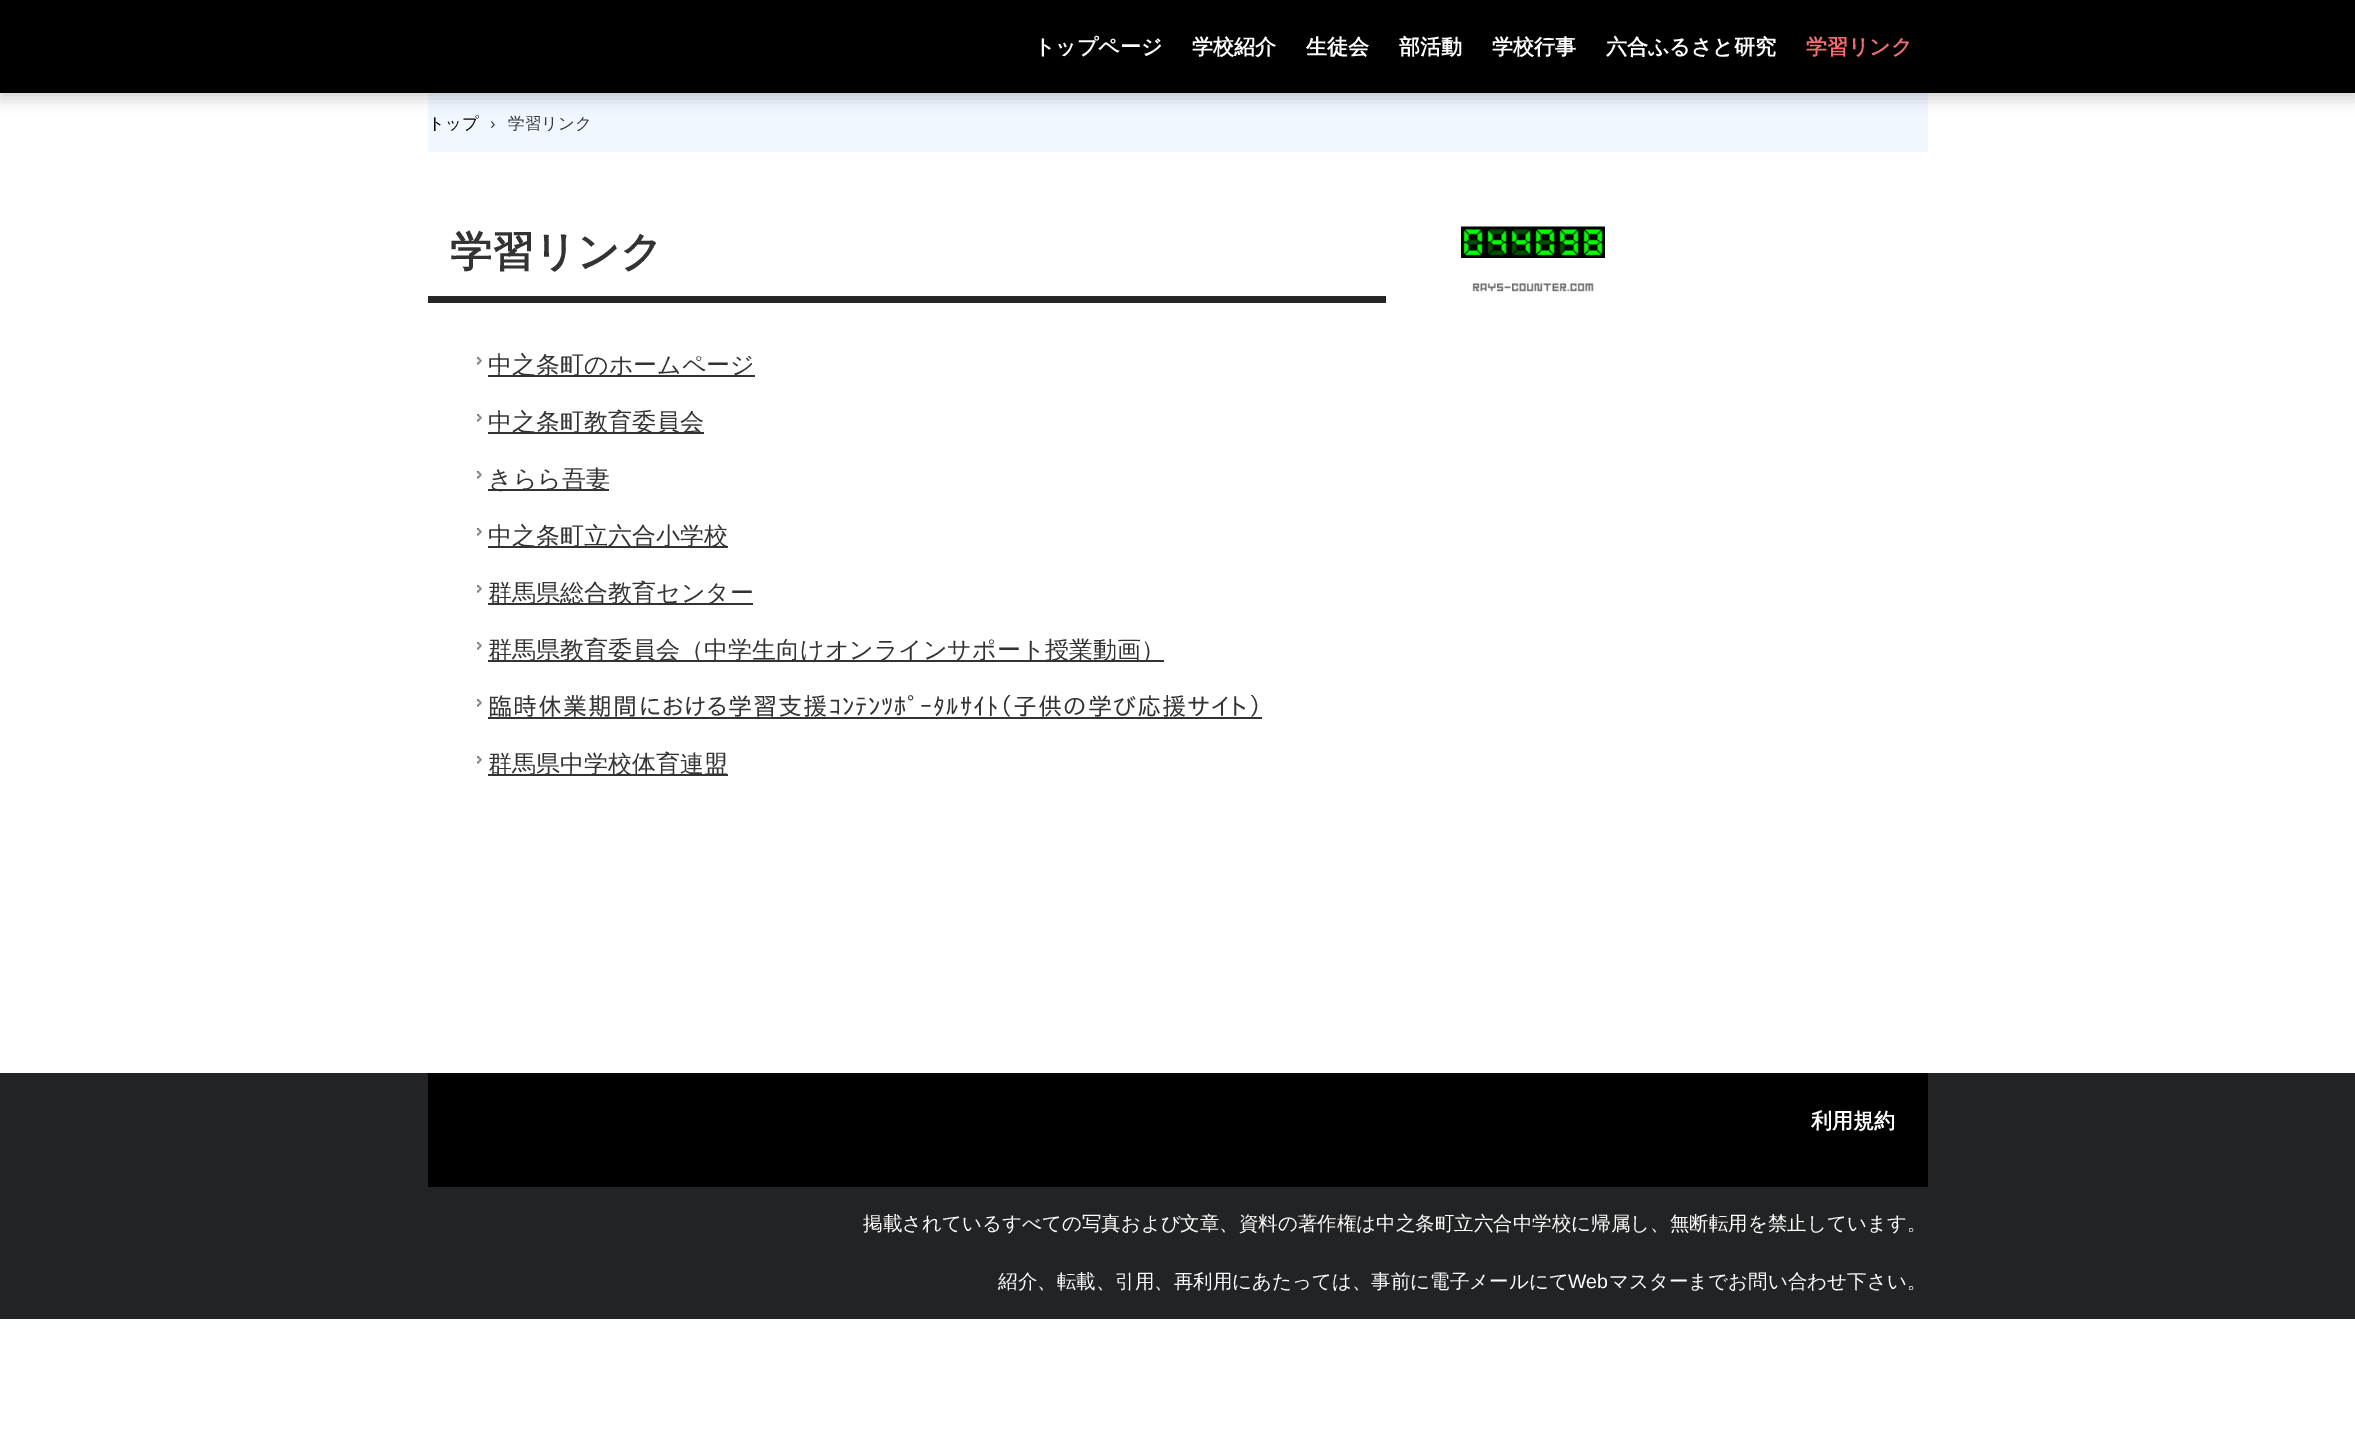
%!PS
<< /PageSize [2355 1453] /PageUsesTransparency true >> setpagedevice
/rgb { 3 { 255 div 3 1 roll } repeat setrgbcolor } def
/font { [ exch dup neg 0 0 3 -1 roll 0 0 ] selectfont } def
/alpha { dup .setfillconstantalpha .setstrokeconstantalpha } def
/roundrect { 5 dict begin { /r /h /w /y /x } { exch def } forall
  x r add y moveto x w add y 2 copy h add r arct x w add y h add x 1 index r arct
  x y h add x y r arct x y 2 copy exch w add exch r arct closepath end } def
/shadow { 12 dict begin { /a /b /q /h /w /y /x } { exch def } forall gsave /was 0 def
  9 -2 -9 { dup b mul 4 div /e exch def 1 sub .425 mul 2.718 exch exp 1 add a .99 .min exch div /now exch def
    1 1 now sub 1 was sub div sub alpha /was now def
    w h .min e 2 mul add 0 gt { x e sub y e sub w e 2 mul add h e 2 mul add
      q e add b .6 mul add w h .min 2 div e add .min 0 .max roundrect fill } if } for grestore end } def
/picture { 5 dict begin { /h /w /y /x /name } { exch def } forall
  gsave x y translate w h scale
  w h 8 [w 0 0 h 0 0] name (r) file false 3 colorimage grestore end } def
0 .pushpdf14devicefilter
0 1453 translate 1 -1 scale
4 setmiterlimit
255 255 255 rgb
0 0 2355 1453 rectfill
240 247 255 rgb
428 93 1500 59 rectfill
0 0 0 rgb
0 5 2355 93 0 7.5 0.2 shadow
0 0 2355 93 rectfill
38 38 38 rgb
428 296 958 7 rectfill
(img/1.rgb) 477 357 5 8 picture
51 51 51 rgb
488 375 267 2 rectfill
(img/1.rgb) 477 414 5 8 picture
488 432 216 2 rectfill
(img/1.rgb) 477 471 5 8 picture
488 489 121 2 rectfill
(img/1.rgb) 477 528 5 8 picture
488 546 240 2 rectfill
(img/1.rgb) 477 585 5 8 picture
488 603 265 2 rectfill
(img/1.rgb) 477 642 5 8 picture
488 660 676 2 rectfill
(img/1.rgb) 477 699 5 8 picture
488 717 774 2 rectfill
(img/1.rgb) 477 756 5 8 picture
488 774 240 2 rectfill
(img/2.rgb) 1461 226 144 32 picture
(img/3.rgb) 1472 283 12 9 picture
(img/4.rgb) 1483 283 13 9 picture
(img/5.rgb) 1497 283 14 9 picture
(img/6.rgb) 1512 283 55 9 picture
(img/7.rgb) 1567 283 27 9 picture
34 35 36 rgb
0 1073 2355 246 rectfill
0 0 0 rgb
428 1073 1500 114 rectfill
/WenQuanYiZenHei-Bold 21 font
255 255 255 rgb
[
  [(トップページ) 1034 54]
  [(学校紹介) 1192 54]
  [(生徒会) 1306 54]
  [(部活動) 1399 54]
  [(学校行事) 1492 54]
  [(六合ふるさと研究) 1606 54]
] { aload pop moveto show } forall
241 109 109 rgb
1806 54 moveto (学習リンク) show
/WenQuanYiZenHei-Medium 16.5 font
0 0 0 rgb
428 129 moveto (トップ) show
/LiberationSans-Regular 16.5 font
51 51 51 rgb
490 129 moveto (›) show
/WenQuanYiZenHei-Medium 16.5 font
508 129 moveto (学習リンク) show
/WenQuanYiZenHei-Bold 42 font
450 266 moveto (学習リンク) show
/WenQuanYiZenHei-Medium 24 font
[
  [(中之条町のホームページ) 488 373]
  [(中之条町教育委員会) 488 430]
  [(きらら吾妻) 488 487]
  [(中之条町立六合小学校) 488 544]
  [(群馬県総合教育センター) 488 601]
  [(群馬県教育委員会（中学生向けオンラインサポート授業動画）) 488 658]
] { aload pop moveto show } forall
/IPAPGothic-Regular 24 font
488 715 moveto 1.1 0 (臨時休業期間における学習支援ｺﾝﾃﾝﾂﾎﾟｰﾀﾙｻｲﾄ（子供の学び応援サイト）) ashow
/WenQuanYiZenHei-Medium 24 font
488 772 moveto (群馬県中学校体育連盟) show
/WenQuanYiZenHei-Bold 21 font
255 255 255 rgb
1811 1128 moveto (利用規約) show
/WenQuanYiZenHei-Medium 19.5 font
863 1230 moveto (掲載されているすべての写真および文章、資料の著作権は中之条町立六合中学校に帰属し、無断転用を禁止しています。) show
998 1288 moveto (紹介、転載、引用、再利用にあたっては、事前に電子メールにて) show
/LiberationSans-Regular 19.5 font
1568 1288 moveto (Web) show
/WenQuanYiZenHei-Medium 19.5 font
1609 1288 moveto (マスターまでお問い合わせ下さい。) show
.poppdf14devicefilter showpage
